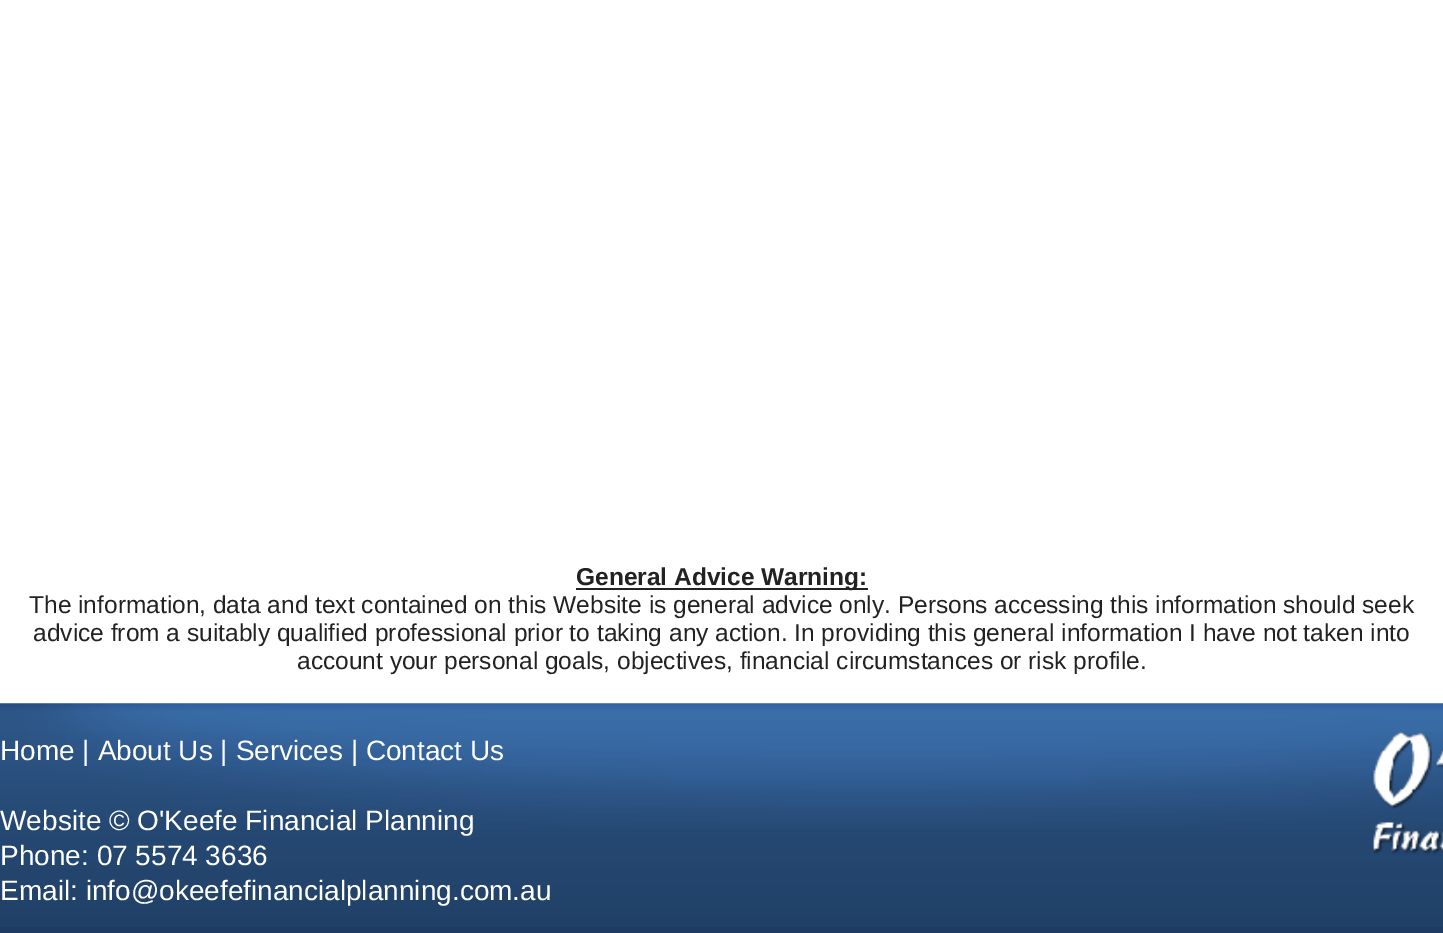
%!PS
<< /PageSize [1443 933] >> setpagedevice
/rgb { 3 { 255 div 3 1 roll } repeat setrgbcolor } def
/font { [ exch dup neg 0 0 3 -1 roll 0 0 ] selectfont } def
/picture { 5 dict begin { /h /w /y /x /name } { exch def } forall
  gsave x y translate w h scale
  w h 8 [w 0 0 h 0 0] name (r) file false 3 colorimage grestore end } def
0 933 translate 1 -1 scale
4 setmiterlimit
255 255 255 rgb
0 0 1443 933 rectfill
34 34 34 rgb
576 588 292 2 rectfill
30 59 99 rgb
0 927 1443 6 rectfill
(img/1.rgb) 0 703 1443 224 picture
(img/2.rgb) 0 703 1443 152 picture
/LiberationSans-Bold 24.5 font
34 34 34 rgb
576 585 moveto (General Advice Warning:) show
/LiberationSans-Regular 24.5 font
[
  [(The information, data and text contained on this Website is general advice only. Persons accessing this information should seek) 29 613]
  [(advice from a suitably qualified professional prior to taking any action. In providing this general information I have not taken into) 33 641]
  [(account your personal goals, objectives, financial circumstances or risk profile.) 297 669]
] { aload pop moveto show } forall
/LiberationSans-Regular 28 font
255 255 255 rgb
[
  [(Home | About Us | Services | Contact Us) 0 760]
  [(Website © O'Keefe Financial Planning) 0 830]
  [(Phone: 07 5574 3636) 0 865]
  [(Email: info@okeefefinancialplanning.com.au) 0 900]
] { aload pop moveto show } forall
showpage
